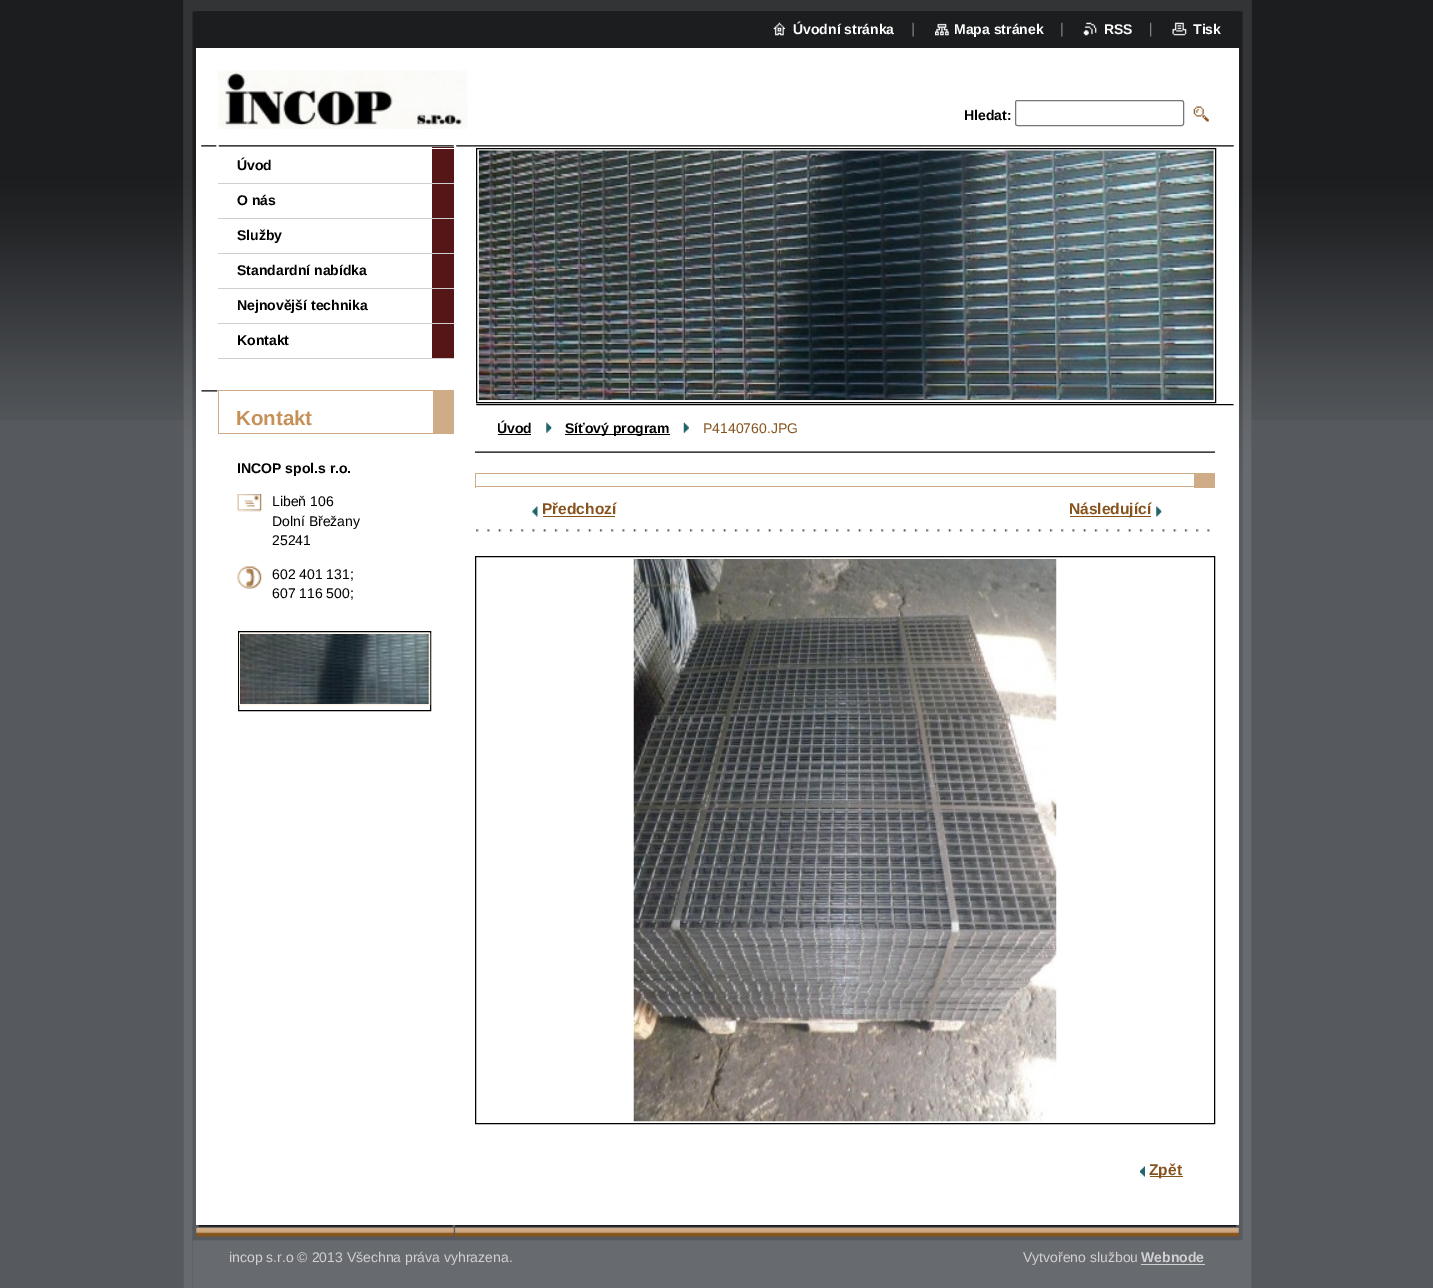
%!PS
<< /PageSize [1433 1288] >> setpagedevice
/rgb { 3 { 255 div 3 1 roll } repeat setrgbcolor } def
/font { [ exch dup neg 0 0 3 -1 roll 0 0 ] selectfont } def
/roundrect { 5 dict begin { /r /h /w /y /x } { exch def } forall
  x r add y moveto x w add y 2 copy h add r arct x w add y h add x 1 index r arct
  x y h add x y r arct x y 2 copy exch w add exch r arct closepath end } def
/picture { 5 dict begin { /h /w /y /x /name } { exch def } forall
  gsave x y translate w h scale
  w h 8 [w 0 0 h 0 0] name (r) file false 3 colorimage grestore end } def
0 1288 translate 1 -1 scale
4 setmiterlimit
86 89 93 rgb
0 0 1433 1288 rectfill
(img/1.rgb) 0 0 1433 420 picture
(img/2.rgb) 183 0 1069 1288 picture
(img/3.rgb) 184 0 1067 469 picture
255 255 255 rgb
196 48 1043 1177 rectfill
27 29 31 rgb
196 11 1043 37 rectfill
(img/4.rgb) 773 22 12 14 picture
(img/5.rgb) 912 22 2 15 picture
(img/6.rgb) 935 23 14 13 picture
(img/7.rgb) 1061 22 2 15 picture
(img/8.rgb) 1083 22 14 14 picture
(img/9.rgb) 1150 22 2 15 picture
(img/10.rgb) 1172 22 15 14 picture
(img/11.rgb) 218 70 250 59 picture
118 118 118 rgb
1015.5 100.5 168 25 2 roundrect stroke
(img/12.rgb) 1193 106 16 16 picture
(img/13.rgb) 201 145 253 2 picture
[
  [432 147 22 211 84 22 23]
  [432 148 22 1 255 255 255]
  [218 183 236 1 207 207 207]
  [218 218 236 1 207 207 207]
  [218 253 236 1 207 207 207]
  [218 288 236 1 207 207 207]
  [218 323 236 1 207 207 207]
  [218 358 236 1 207 207 207]
] { aload pop rgb rectfill } forall
(img/14.rgb) 201 390 17 2 picture
[
  [218 390 215 1 206 172 136]
  [433 390 21 43 206 172 136]
  [218 433 236 1 206 172 136]
  [218 390 1 44 206 172 136]
] { aload pop rgb rectfill } forall
(img/15.rgb) 237 494 25 18 picture
(img/16.rgb) 237 566 25 23 picture
0 0 0 rgb
238.5 631.5 192 79 rectstroke
253 242 230 rgb
239.5 633.5 190 71 rectstroke
(img/17.rgb) 240 634 189 70 picture
(img/18.rgb) 456 145 778 2 picture
(img/19.rgb) 476 404 758 2 picture
0 0 0 rgb
476.5 148.5 739 254 rectstroke
(img/20.rgb) 478 150 736 251 picture
(img/21.rgb) 475 451 740 2 picture
498 434 33 1 rectfill
(img/22.rgb) 546 422 6 11 picture
565 434 105 1 rectfill
(img/23.rgb) 683 422 6 11 picture
[
  [475 473 719 1 206 172 136]
  [1194 473 21 15 206 172 136]
  [475 486 719 1 206 172 136]
  [475 473 1 15 206 172 136]
] { aload pop rgb rectfill } forall
(img/24.rgb) 476 529 735 3 picture
(img/25.rgb) 532 506 6 11 picture
134 83 28 rgb
543 516 72 1 rectfill
1070 516 81 1 rectfill
(img/26.rgb) 1156 506 6 11 picture
0 0 0 rgb
475.5 556.5 739 567 rectstroke
(img/27.rgb) 633 559 424 563 picture
(img/28.rgb) 1140 1166 5 11 picture
134 83 28 rgb
1150 1176 33 1 rectfill
103 106 110 rgb
193 1225 1050 63 rectfill
(img/29.rgb) 192 1225 1051 16 picture
209 209 209 rgb
1141 1264 64 1 rectfill
/LiberationSans-Bold 14 font
255 255 255 rgb
[
  [(Úvodní stránka) 793 34]
  [(Mapa stránek) 954 34]
  [(RSS) 1104 34]
  [(Tisk) 1193 34]
] { aload pop moveto show } forall
0 0 0 rgb
[
  [(Hledat:) 964 120]
  [(Úvod) 237 170]
  [(O nás) 237 205]
  [(Služby) 237 240]
  [(Standardní nabídka) 237 275]
  [(Nejnovější technika) 237 310]
  [(Kontakt) 237 345]
] { aload pop moveto show } forall
/LiberationSans-Bold 20.5 font
198 145 89 rgb
236 425 moveto (Kontakt) show
/LiberationSans-Bold 14 font
0 0 0 rgb
237 473 moveto (INCOP spol.s r.o.) show
/LiberationSans-Regular 14 font
[
  [(Libeň 106) 272 506]
  [(Dolní Břežany) 272 526]
  [(25241) 272 545]
  [(602 401 131;) 272 579]
  [(607 116 500;) 272 598]
] { aload pop moveto show } forall
gsave
498 405 695 48 rectclip
/LiberationSans-Bold 14 font
497 433 moveto (Úvod) show
grestore
/LiberationSans-Bold 14 font
565 433 moveto (Síťový program) show
/LiberationSans-Regular 14 font
134 83 28 rgb
703 433 moveto (P4140760.JPG) show
/LiberationSans-Bold 15.5 font
[
  [(Předchozí) 542 514]
  [(Následující) 1069 514]
  [(Zpět) 1149 1175]
] { aload pop moveto show } forall
/LiberationSans-Regular 14 font
209 209 209 rgb
229 1262 moveto (incop s.r.o © 2013 Všechna práva vyhrazena.) show
1023 1262 moveto (Vytvořeno službou) show
/LiberationSans-Bold 14 font
1141 1262 moveto (Webnode) show
showpage
